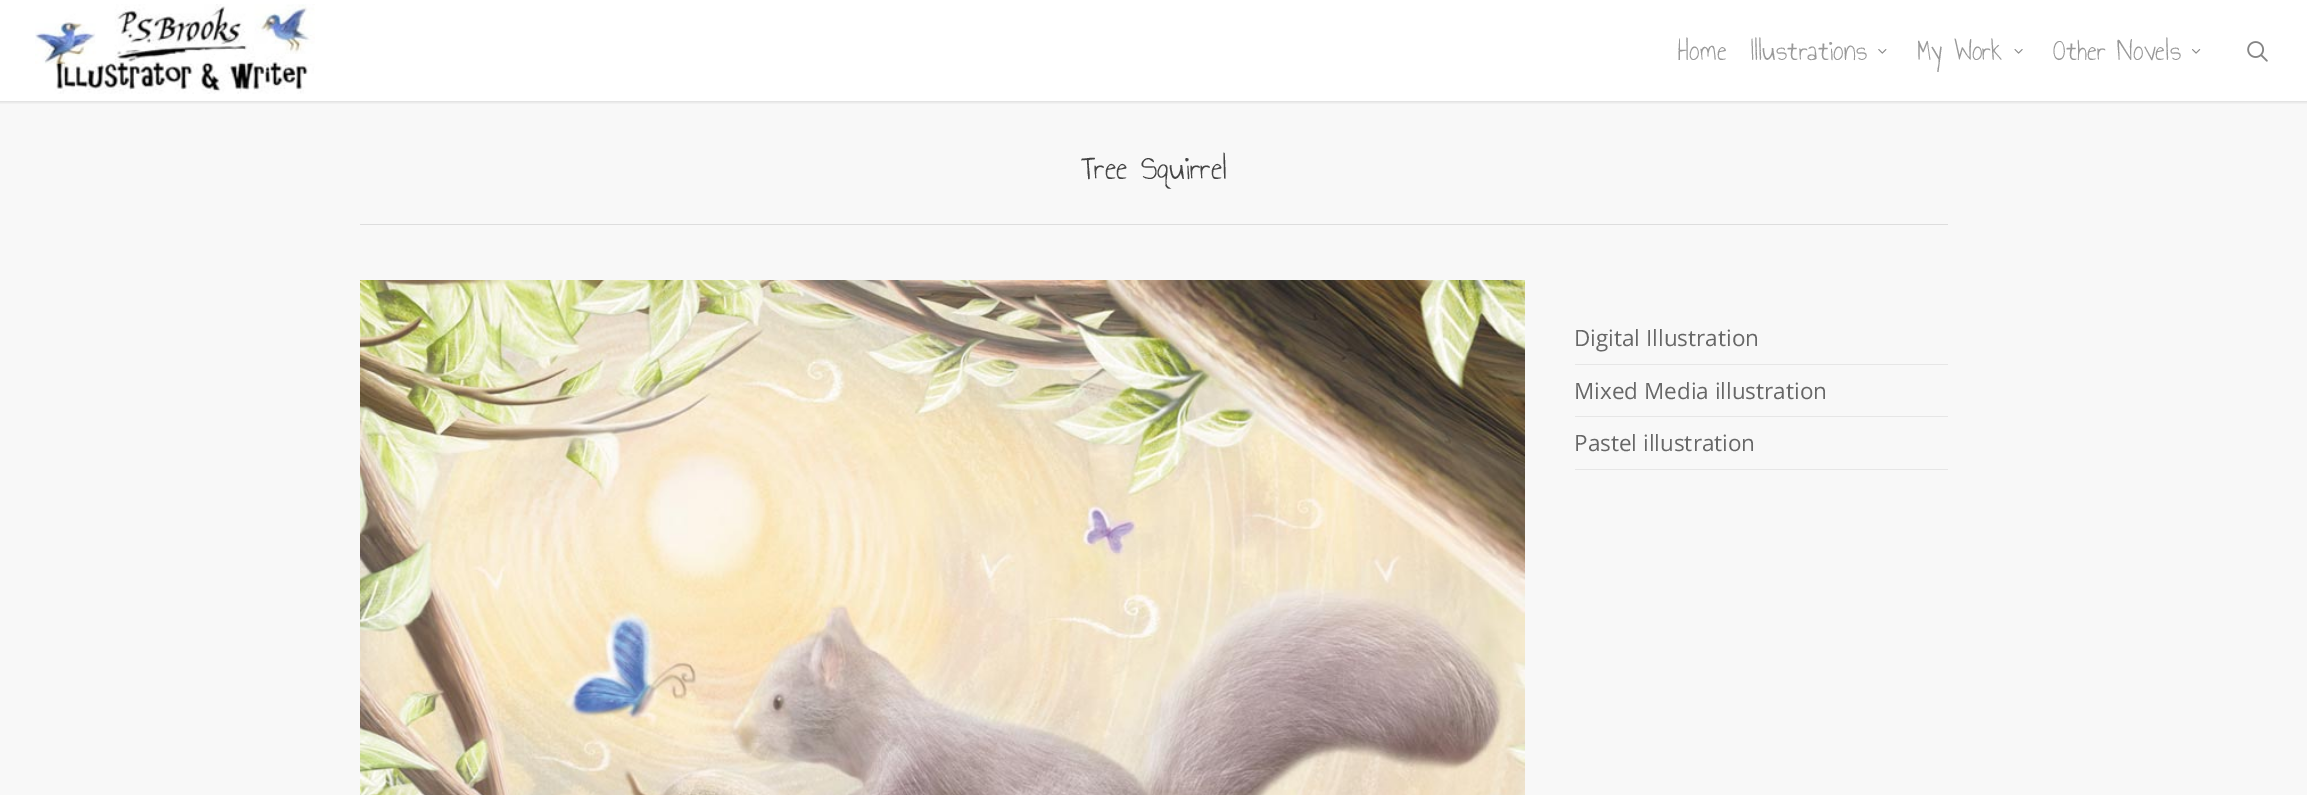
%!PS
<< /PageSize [2307 795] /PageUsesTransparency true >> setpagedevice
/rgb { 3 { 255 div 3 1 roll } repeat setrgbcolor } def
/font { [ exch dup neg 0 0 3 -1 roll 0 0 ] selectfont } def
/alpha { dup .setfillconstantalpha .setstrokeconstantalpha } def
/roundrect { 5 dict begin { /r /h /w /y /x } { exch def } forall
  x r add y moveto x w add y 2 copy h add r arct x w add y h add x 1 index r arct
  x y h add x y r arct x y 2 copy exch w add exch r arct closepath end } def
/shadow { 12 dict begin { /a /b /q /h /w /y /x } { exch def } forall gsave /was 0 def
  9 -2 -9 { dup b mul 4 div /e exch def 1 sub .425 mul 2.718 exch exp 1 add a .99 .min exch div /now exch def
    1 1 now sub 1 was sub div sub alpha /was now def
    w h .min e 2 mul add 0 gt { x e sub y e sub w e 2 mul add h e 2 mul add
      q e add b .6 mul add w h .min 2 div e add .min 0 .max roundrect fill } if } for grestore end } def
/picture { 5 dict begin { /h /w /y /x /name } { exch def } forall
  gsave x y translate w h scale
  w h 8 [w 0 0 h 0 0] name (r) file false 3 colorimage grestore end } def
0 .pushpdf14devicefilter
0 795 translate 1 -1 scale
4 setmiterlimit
255 255 255 rgb
0 0 2307 795 rectfill
248 248 248 rgb
0 101 2307 694 rectfill
gsave
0 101 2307 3 rectclip
0 0 0 rgb
0 0 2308 101 0 2 0.22 shadow
grestore
(img/1.rgb) 35 4 280 90 picture
(img/2.rgb) 1878 49 9 5 picture
(img/3.rgb) 2014 49 9 5 picture
(img/4.rgb) 2192 49 9 5 picture
(img/5.rgb) 2247 41 21 21 picture
221 221 221 rgb
360 224 1588 1 rectfill
(img/6.rgb) 360 280 1165 515 picture
[
  [1575 364 373 1 230 230 230]
  [1575 416 373 1 230 230 230]
  [1575 469 373 1 230 230 230]
] { aload pop rgb rectfill } forall
/AnnieUseYourTelescope-Regular 30 font
153 153 153 rgb
[
  [(Home) 1678 60]
  [(Illustrations) 1751 60]
  [(My Work) 1917 60]
  [(Other Novels) 2053 60]
] { aload pop moveto show } forall
/AnnieUseYourTelescope-Regular 35 font
68 68 68 rgb
1081 179 moveto (Tree Squirrel) show
/OpenSans-Regular 22.5 font
103 103 103 rgb
[
  [(Digital Illustration) 1574 346]
  [(Mixed Media illustration) 1574 399]
  [(Pastel illustration) 1574 451]
] { aload pop moveto show } forall
.poppdf14devicefilter showpage
